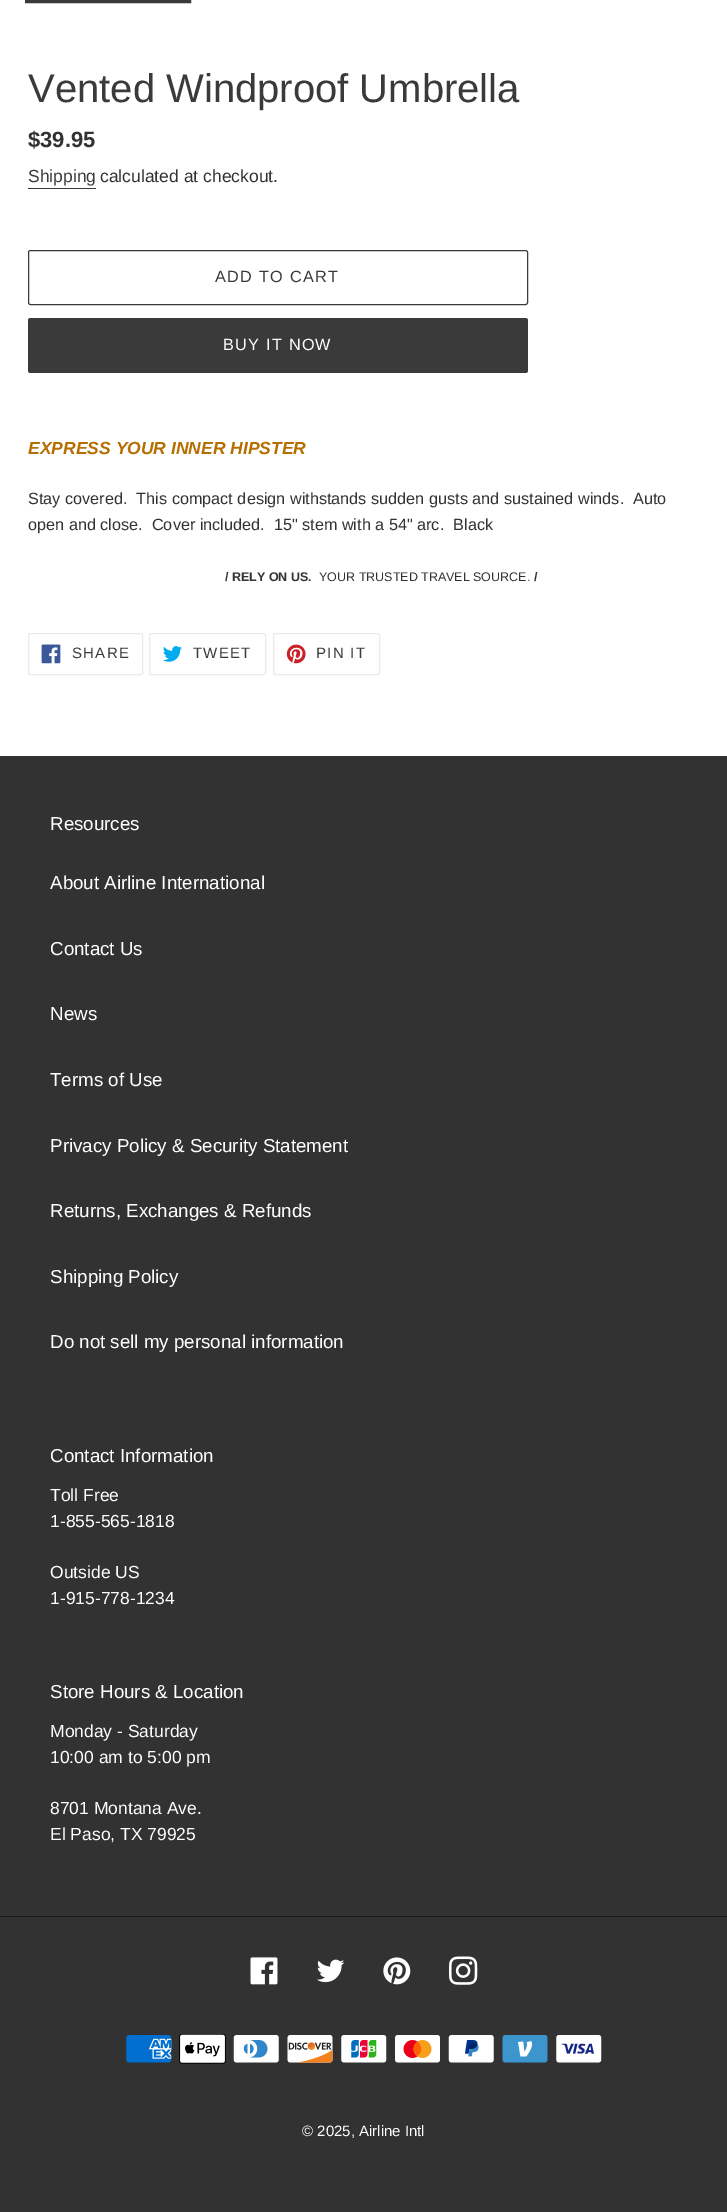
%!PS
<< /PageSize [727 2212] >> setpagedevice
/rgb { 3 { 255 div 3 1 roll } repeat setrgbcolor } def
/font { [ exch dup neg 0 0 3 -1 roll 0 0 ] selectfont } def
/roundrect { 5 dict begin { /r /h /w /y /x } { exch def } forall
  x r add y moveto x w add y 2 copy h add r arct x w add y h add x 1 index r arct
  x y h add x y r arct x y 2 copy exch w add exch r arct closepath end } def
/picture { 5 dict begin { /h /w /y /x /name } { exch def } forall
  gsave x y translate w h scale
  w h 8 [w 0 0 h 0 0] name (r) file false 3 colorimage grestore end } def
0 2212 translate 1 -1 scale
4 setmiterlimit
255 255 255 rgb
0 0 727 2212 rectfill
58 58 58 rgb
3 setlinewidth
26.5 -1.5 163 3 rectstroke
28 188 68 1 rectfill
1 setlinewidth
28.5 250.5 499 54 2 roundrect stroke
28 318 500 55 2.5 roundrect fill
235 235 235 rgb
28.5 633.5 114 41 2 roundrect stroke
(img/1.rgb) 41 644 20 20 picture
149.5 633.5 116 41 2 roundrect stroke
(img/2.rgb) 163 646 19 16 picture
273.5 633.5 106 41 2 roundrect stroke
(img/3.rgb) 286 644 20 20 picture
51 50 50 rgb
0 756 727 1456 rectfill
25 25 25 rgb
0 1916 727 1 rectfill
(img/4.rgb) 250 1957 28 28 picture
(img/5.rgb) 317 1959 28 24 picture
(img/6.rgb) 383 1957 28 28 picture
(img/7.rgb) 449 1956 29 29 picture
(img/8.rgb) 126 2035 46 28 picture
(img/9.rgb) 179 2034 47 30 picture
(img/10.rgb) 233 2035 46 28 picture
(img/11.rgb) 287 2035 46 28 picture
(img/12.rgb) 341 2035 46 28 picture
(img/13.rgb) 395 2035 45 28 picture
(img/14.rgb) 448 2035 46 28 picture
(img/15.rgb) 502 2035 46 28 picture
(img/16.rgb) 556 2035 46 28 picture
/LiberationSans-Regular 40 font
58 58 58 rgb
28 102 moveto (Vented Windproof Umbrella) show
/LiberationSans-Bold 22 font
51 50 50 rgb
28 147 moveto ($39.95) show
/LiberationSans-Regular 17.5 font
58 58 58 rgb
28 182 moveto (Shipping) show
51 50 50 rgb
100 182 moveto (calculated at checkout.) show
/LiberationSans-Regular 16.25 font
58 58 58 rgb
215 282 moveto 1.25 0 (ADD TO CART) ashow
255 255 255 rgb
223 350 moveto 1.25 0 (BUY IT NOW) ashow
/LiberationSans-BoldItalic 17.5 font
183 110 0 rgb
28 454 moveto (EXPRESS YOUR INNER HIPSTER) show
/LiberationSans-Regular 16.25 font
51 50 50 rgb
28 504 moveto (Stay covered.  This compact design withstands sudden gusts and sustained winds.  Auto) show
28 530 moveto (open and close.  Cover included.  15" stem with a 54" arc.  Black) show
/LiberationSans-Bold 12.5 font
225 581 moveto (/ RELY ON US.) show
/LiberationSans-Regular 12.5 font
319 581 moveto (YOUR TRUSTED TRAVEL SOURCE.) show
/LiberationSans-Bold 12.5 font
534 581 moveto (/) show
/LiberationSans-Regular 15 font
58 58 58 rgb
72 658 moveto 1.25 0 (SHARE) ashow
193 658 moveto 1.25 0 (TWEET) ashow
316 658 moveto 1.25 0 (PIN IT) ashow
/LiberationSans-Regular 18.75 font
255 255 255 rgb
[
  [(Resources) 50 830]
  [(About Airline International) 50 889]
  [(Contact Us) 50 955]
  [(News) 50 1020]
  [(Terms of Use) 50 1086]
  [(Privacy Policy & Security Statement) 50 1152]
  [(Returns, Exchanges & Refunds) 50 1217]
  [(Shipping Policy) 50 1283]
  [(Do not sell my personal information) 50 1348]
  [(Contact Information) 50 1462]
] { aload pop moveto show } forall
/LiberationSans-Regular 17.5 font
[
  [(Toll Free) 50 1501]
  [(1-855-565-1818) 50 1527]
  [(Outside US) 50 1578]
  [(1-915-778-1234) 50 1604]
] { aload pop moveto show } forall
/LiberationSans-Regular 18.75 font
50 1698 moveto (Store Hours & Location) show
/LiberationSans-Regular 17.5 font
[
  [(Monday - Saturday) 50 1737]
  [(10:00 am to 5:00 pm) 50 1763]
  [(8701 Montana Ave.) 50 1814]
  [(El Paso, TX 79925) 50 1840]
] { aload pop moveto show } forall
/LiberationSans-Regular 15 font
302 2136 moveto (© 2025, Airline Intl) show
showpage
